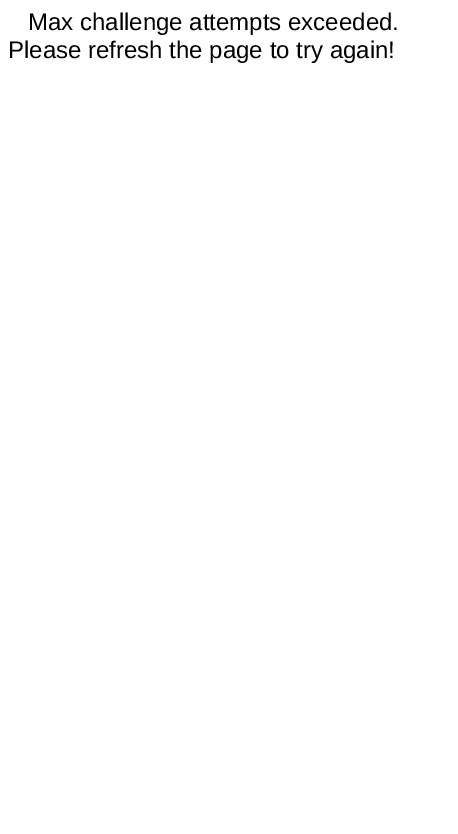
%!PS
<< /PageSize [458 834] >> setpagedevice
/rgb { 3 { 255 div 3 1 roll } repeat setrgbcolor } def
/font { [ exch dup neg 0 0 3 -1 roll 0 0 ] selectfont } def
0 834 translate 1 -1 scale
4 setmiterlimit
255 255 255 rgb
0 0 458 834 rectfill
/LiberationSans-Regular 24 font
0 0 0 rgb
28 30 moveto (Max challenge attempts exceeded.) show
8 58 moveto (Please refresh the page to try again!) show
showpage
